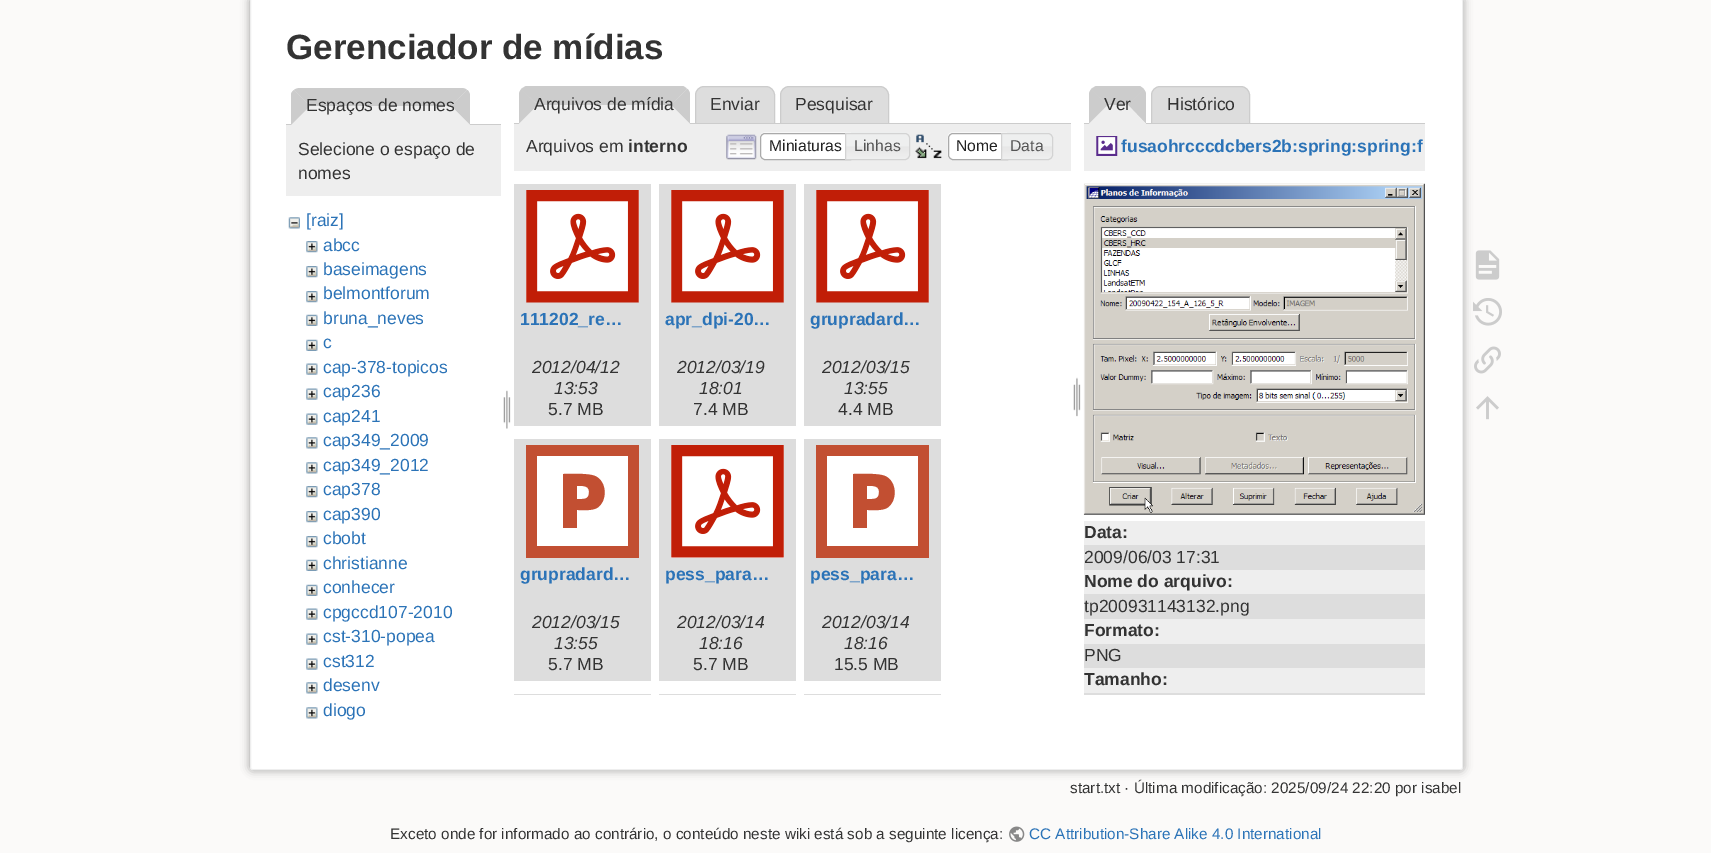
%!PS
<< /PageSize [1711 853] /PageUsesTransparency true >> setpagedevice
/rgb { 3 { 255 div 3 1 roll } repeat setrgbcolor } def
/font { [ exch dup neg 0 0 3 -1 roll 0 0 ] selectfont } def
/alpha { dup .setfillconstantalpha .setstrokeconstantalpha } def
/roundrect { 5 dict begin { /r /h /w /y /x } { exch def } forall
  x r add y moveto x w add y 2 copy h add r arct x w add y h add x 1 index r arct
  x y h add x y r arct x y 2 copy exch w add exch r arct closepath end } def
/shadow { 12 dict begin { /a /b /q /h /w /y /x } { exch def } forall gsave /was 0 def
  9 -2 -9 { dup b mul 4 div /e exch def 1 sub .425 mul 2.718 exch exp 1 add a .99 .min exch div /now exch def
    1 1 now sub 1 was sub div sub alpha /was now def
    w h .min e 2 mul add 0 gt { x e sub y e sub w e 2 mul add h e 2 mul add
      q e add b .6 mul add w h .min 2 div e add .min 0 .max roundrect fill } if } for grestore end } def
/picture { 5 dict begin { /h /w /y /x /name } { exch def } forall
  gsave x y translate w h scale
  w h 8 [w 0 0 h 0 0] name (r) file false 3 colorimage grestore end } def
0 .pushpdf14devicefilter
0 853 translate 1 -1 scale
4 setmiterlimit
251 250 249 rgb
0 0 1711 853 rectfill
153 153 153 rgb
250 -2 1213 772 2.5 4.5 1 shadow
255 255 255 rgb
250.5 -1.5 1212 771 2 roundrect gsave fill grestore
238 238 238 rgb
stroke
204 204 204 rgb
286 124 215 1 rectfill
238 238 238 rgb
300 88 moveto 461 88 lineto 466 88 470 92 470 97 curveto 470 125 lineto 291 125 lineto 291 97 lineto 291 92 295 88 300 88 curveto closepath fill
204 204 204 rgb
300 88 moveto 298 88 295 89 294 90 curveto 310 106 lineto 451 106 lineto 467 90 lineto 466 89 464 88 461 88 curveto closepath fill
467.5 90 moveto 469 91.5 470 93.5 470 96 curveto 470 125 lineto 451 106 lineto closepath fill
238 238 238 rgb
470 125 moveto 451 106 lineto 310 106 lineto 291 125 lineto closepath fill
204 204 204 rgb
291 125 moveto 310 106 lineto 294 90 lineto 292.5 91 291.5 92.5 291 94 curveto closepath fill
238 238 238 rgb
286 125 215 71 rectfill
(img/1.rgb) 288 217 12 12 picture
(img/2.rgb) 306 241 12 12 picture
(img/2.rgb) 306 266 12 12 picture
(img/2.rgb) 306 291 12 12 picture
(img/3.rgb) 306 314 12 12 picture
(img/3.rgb) 306 339 12 12 picture
(img/4.rgb) 306 363 12 12 picture
(img/4.rgb) 306 388 12 12 picture
(img/4.rgb) 306 413 12 12 picture
(img/5.rgb) 306 437 12 12 picture
(img/5.rgb) 306 462 12 12 picture
(img/2.rgb) 306 486 12 12 picture
(img/2.rgb) 306 511 12 12 picture
(img/2.rgb) 306 536 12 12 picture
(img/6.rgb) 306 559 12 12 picture
(img/3.rgb) 306 584 12 12 picture
(img/4.rgb) 306 608 12 12 picture
(img/4.rgb) 306 633 12 12 picture
(img/4.rgb) 306 658 12 12 picture
(img/5.rgb) 306 682 12 12 picture
(img/5.rgb) 306 707 12 12 picture
(img/7.rgb) 503 390 8 39 picture
221 221 221 rgb
704 86.5 moveto 766 86.5 lineto 770.5 86.5 774.5 90.5 774.5 95 curveto 774.5 123.5 lineto 695.5 123.5 lineto 695.5 95 lineto 695.5 90.5 699.5 86.5 704 86.5 curveto closepath gsave fill grestore
204 204 204 rgb
stroke
221 221 221 rgb
789 86.5 moveto 880 86.5 lineto 884.5 86.5 888.5 90.5 888.5 95 curveto 888.5 123.5 lineto 780.5 123.5 lineto 780.5 95 lineto 780.5 90.5 784.5 86.5 789 86.5 curveto closepath gsave fill grestore
204 204 204 rgb
stroke
514 123 557 1 rectfill
238 238 238 rgb
528 86 moveto 681 86 lineto 686 86 690 90 690 95 curveto 690 124 lineto 519 124 lineto 519 95 lineto 519 90 523 86 528 86 curveto closepath fill
204 204 204 rgb
683 86 moveto 526 86 lineto 524 87 523 88 521 89 curveto 538 105 lineto 671 105 lineto 687 89 lineto 686 88 685 87 683 86 curveto closepath fill
687.5 89 moveto 671 105 lineto 690 124 lineto 690 95 lineto 690 92.5 689 90.5 687.5 89 curveto closepath fill
238 238 238 rgb
690 124 moveto 671 105 lineto 538 105 lineto 519 124 lineto closepath fill
204 204 204 rgb
519 123.5 moveto 537.5 105 lineto 521.5 89 lineto 520 90.5 519 92.5 519 95 curveto closepath fill
238 238 238 rgb
514 124 557 47 rectfill
(img/8.rgb) 726 134 31 26 picture
255 255 255 rgb
765 133 moveto 851 133 lineto 851 160 lineto 765 160 lineto 762 160 760 158 760 155 curveto 760 138 lineto 760 135 762 133 765 133 curveto closepath fill
(img/9.rgb) 760 132 91 4 picture
170 170 170 rgb
765 133.5 moveto 850.5 133.5 lineto 850.5 159.5 lineto 765 159.5 lineto 762.5 159.5 760.5 157.5 760.5 155 curveto 760.5 138 lineto 760.5 135.5 762.5 133.5 765 133.5 curveto closepath stroke
(img/10.rgb) 845 132 65 28 picture
211 211 211 rgb
845.5 133.5 moveto 905 133.5 lineto 907.5 133.5 909.5 135.5 909.5 138 curveto 909.5 155 lineto 909.5 157.5 907.5 159.5 905 159.5 curveto 845.5 159.5 lineto closepath stroke
(img/11.rgb) 915 134 27 25 picture
(img/12.rgb) 947 132 60 27 picture
170 170 170 rgb
953 133.5 moveto 1007.5 133.5 lineto 1007.5 159.5 lineto 953 159.5 lineto 950.5 159.5 948.5 157.5 948.5 155 curveto 948.5 138 lineto 948.5 135.5 950.5 133.5 953 133.5 curveto closepath stroke
(img/13.rgb) 1001 132 51 28 picture
211 211 211 rgb
1001.5 133.5 moveto 1048 133.5 lineto 1050.5 133.5 1052.5 135.5 1052.5 138 curveto 1052.5 155 lineto 1052.5 157.5 1050.5 159.5 1048 159.5 curveto 1001.5 159.5 lineto closepath stroke
221 221 221 rgb
514 184 137 242 rectfill
(img/14.rgb) 526 190 113 113 picture
659 184 137 242 rectfill
(img/14.rgb) 671 190 113 113 picture
804 184 137 242 rectfill
(img/14.rgb) 816 190 113 113 picture
514 439 137 242 rectfill
255 255 255 rgb
537 456 91 90 rectfill
194 79 50 rgb
639 558 moveto 526 558 lineto 526 445 lineto 639 445 lineto closepath 537 546 moveto 628 546 lineto 628 456 lineto 537 456 lineto fill
577 528 moveto 563 528 lineto 563 474 lineto 571 474 588 473 595 476 curveto 607 481 608 501 597 508 curveto 591 511 584 510 577 510 curveto closepath 577 499 moveto 582 499 lineto 587 499 589 497 589 492 curveto 589 488 587 486 582 486 curveto 577 486 lineto closepath fill
221 221 221 rgb
659 439 137 242 rectfill
(img/15.rgb) 671 445 113 113 picture
804 439 137 242 rectfill
255 255 255 rgb
827 456 91 90 rectfill
194 79 50 rgb
929 558 moveto 816 558 lineto 816 445 lineto 929 445 lineto closepath 827 546 moveto 918 546 lineto 918 456 lineto 827 456 lineto fill
867 528 moveto 853 528 lineto 853 474 lineto 861 474 878 473 885 476 curveto 897 481 898 501 887 508 curveto 881 511 874 510 867 510 curveto closepath 867 499 moveto 872 499 lineto 877 499 879 497 879 492 curveto 879 488 877 486 872 486 curveto 867 486 lineto closepath fill
[
  [514 694 137 1 221 221 221]
  [659 694 137 1 221 221 221]
  [804 694 137 1 221 221 221]
] { aload pop rgb rectfill } forall
(img/16.rgb) 1073 377 8 40 picture
1160 86.5 moveto 1241 86.5 lineto 1245.5 86.5 1249.5 90.5 1249.5 95 curveto 1249.5 123.5 lineto 1151.5 123.5 lineto 1151.5 95 lineto 1151.5 90.5 1155.5 86.5 1160 86.5 curveto closepath gsave fill grestore
204 204 204 rgb
stroke
1084 123 341 1 rectfill
238 238 238 rgb
1098 86 moveto 1137 86 lineto 1142 86 1146 90 1146 95 curveto 1146 124 lineto 1089 124 lineto 1089 95 lineto 1089 90 1093 86 1098 86 curveto closepath fill
204 204 204 rgb
1140 86 moveto 1096 86 lineto 1094 87 1093 88 1091 89 curveto 1108 105 lineto 1128 105 lineto 1144 89 lineto closepath fill
1143.5 89 moveto 1127.5 105 lineto 1146 123.5 lineto 1146 95 lineto 1146 92.5 1145 90.5 1143.5 89 curveto closepath fill
238 238 238 rgb
1146 124 moveto 1128 105 lineto 1108 105 lineto 1089 124 lineto closepath fill
204 204 204 rgb
1089 123.5 moveto 1107.5 105 lineto 1091.5 89 lineto 1090 90.5 1089 92.5 1089 95 curveto closepath fill
238 238 238 rgb
1084 124 341 47 rectfill
(img/17.rgb) 1096 136 22 20 picture
(img/18.rgb) 1083 183 342 332 picture
[
  [1084 521 341 24 238 238 238]
  [1084 545 341 25 221 221 221]
  [1084 570 341 24 238 238 238]
  [1084 594 341 25 221 221 221]
  [1084 619 341 25 238 238 238]
  [1084 644 341 24 221 221 221]
  [1084 668 341 25 238 238 238]
  [1084 693 341 2 221 221 221]
] { aload pop rgb rectfill } forall
(img/19.rgb) 1475 250 25 30 picture
(img/20.rgb) 1473 298 29 28 picture
(img/21.rgb) 1474 346 27 28 picture
(img/22.rgb) 1476 396 23 24 picture
(img/23.rgb) 1009 826 16 16 picture
/LiberationSans-Bold 35 font
51 51 51 rgb
286 59 moveto (Gerenciador de mídias) show
/LiberationSans-Regular 17.5 font
[
  [(Espaços de nomes) 306 111]
  [(Selecione o espaço de) 298 155]
  [(nomes) 298 179]
] { aload pop moveto show } forall
43 115 183 rgb
[
  [([raiz]) 306 226]
  [(abcc) 323 251]
  [(baseimagens) 323 275]
  [(belmontforum) 323 299]
  [(bruna_neves) 323 324]
  [(c) 323 348]
  [(cap-378-topicos) 323 373]
  [(cap236) 323 397]
  [(cap241) 323 422]
  [(cap349_2009) 323 446]
  [(cap349_2012) 323 471]
  [(cap378) 323 495]
  [(cap390) 323 520]
  [(cbobt) 323 544]
  [(christianne) 323 569]
  [(conhecer) 323 593]
  [(cpgccd107-2010) 323 618]
  [(cst-310-popea) 323 642]
  [(cst312) 323 667]
  [(desenv) 323 691]
  [(diogo) 323 716]
] { aload pop moveto show } forall
51 51 51 rgb
[
  [(Arquivos de mídia) 534 110]
  [(Enviar) 710 110]
  [(Pesquisar) 795 110]
  [(Arquivos em) 526 152]
] { aload pop moveto show } forall
/LiberationSans-Bold 17.5 font
628 152 moveto (interno) show
/LiberationSans-Regular 15.75 font
33 33 33 rgb
769 151 moveto (Miniaturas) show
85 85 85 rgb
854 151 moveto (Linhas) show
33 33 33 rgb
956 151 moveto (Nome) show
85 85 85 rgb
1010 151 moveto (Data) show
/LiberationSans-Bold 17.5 font
43 115 183 rgb
520 325 moveto (111202_re…) show
/LiberationSans-Italic 17.5 font
51 51 51 rgb
532 373 moveto (2012/04/12) show
554 394 moveto (13:53) show
/LiberationSans-Regular 17.5 font
548 415 moveto (5.7 MB) show
/LiberationSans-Bold 17.5 font
43 115 183 rgb
665 325 moveto (apr_dpi-20…) show
/LiberationSans-Italic 17.5 font
51 51 51 rgb
677 373 moveto (2012/03/19) show
699 394 moveto (18:01) show
/LiberationSans-Regular 17.5 font
693 415 moveto (7.4 MB) show
/LiberationSans-Bold 17.5 font
43 115 183 rgb
810 325 moveto (grupradard…) show
/LiberationSans-Italic 17.5 font
51 51 51 rgb
822 373 moveto (2012/03/15) show
844 394 moveto (13:55) show
/LiberationSans-Regular 17.5 font
838 415 moveto (4.4 MB) show
/LiberationSans-Bold 17.5 font
43 115 183 rgb
520 580 moveto (grupradard…) show
/LiberationSans-Italic 17.5 font
51 51 51 rgb
532 628 moveto (2012/03/15) show
554 649 moveto (13:55) show
/LiberationSans-Regular 17.5 font
548 670 moveto (5.7 MB) show
/LiberationSans-Bold 17.5 font
43 115 183 rgb
665 580 moveto (pess_para…) show
/LiberationSans-Italic 17.5 font
51 51 51 rgb
677 628 moveto (2012/03/14) show
699 649 moveto (18:16) show
/LiberationSans-Regular 17.5 font
693 670 moveto (5.7 MB) show
/LiberationSans-Bold 17.5 font
43 115 183 rgb
810 580 moveto (pess_para…) show
/LiberationSans-Italic 17.5 font
51 51 51 rgb
822 628 moveto (2012/03/14) show
844 649 moveto (18:16) show
/LiberationSans-Regular 17.5 font
[
  [(15.5 MB) 834 670]
  [(Ver) 1104 110]
  [(Histórico) 1167 110]
] { aload pop moveto show } forall
/LiberationSans-Bold 17.5 font
43 115 183 rgb
1121 152 moveto (fusaohrcccdcbers2b:spring:spring:f) show
51 51 51 rgb
1084 538 moveto (Data:) show
/LiberationSans-Regular 17.5 font
1084 563 moveto (2009/06/03 17:31) show
/LiberationSans-Bold 17.5 font
1084 587 moveto (Nome do arquivo:) show
/LiberationSans-Regular 17.5 font
1084 612 moveto (tp200931143132.png) show
/LiberationSans-Bold 17.5 font
1084 636 moveto (Formato:) show
/LiberationSans-Regular 17.5 font
1084 661 moveto (PNG) show
/LiberationSans-Bold 17.5 font
1084 685 moveto (Tamanho:) show
/LiberationSans-Regular 15.3 font
1070 793 moveto (start.txt · Última modificação: 2025/09/24 22:20 por isabel) show
390 839 moveto (Exceto onde for informado ao contrário, o conteúdo neste wiki está sob a seguinte licença:) show
43 115 183 rgb
1029 839 moveto (CC Attribution-Share Alike 4.0 International) show
.poppdf14devicefilter showpage
